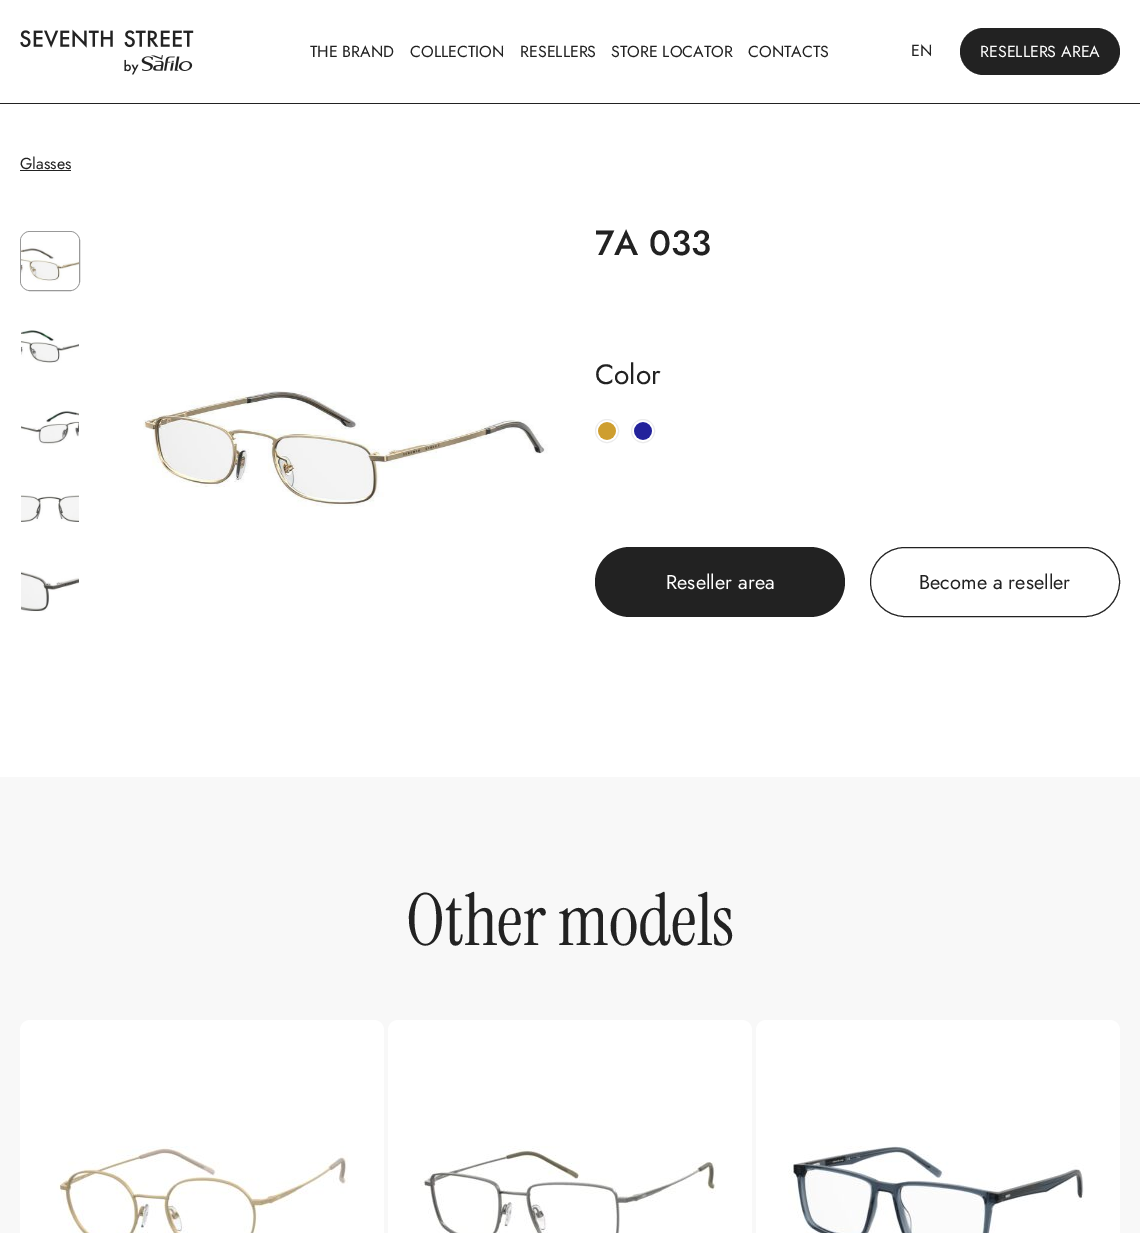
%!PS
<< /PageSize [1140 1233] >> setpagedevice
/rgb { 3 { 255 div 3 1 roll } repeat setrgbcolor } def
/font { [ exch dup neg 0 0 3 -1 roll 0 0 ] selectfont } def
/circle { newpath 0 360 arc closepath } def
/roundrect { 5 dict begin { /r /h /w /y /x } { exch def } forall
  x r add y moveto x w add y 2 copy h add r arct x w add y h add x 1 index r arct
  x y h add x y r arct x y 2 copy exch w add exch r arct closepath end } def
/picture { 5 dict begin { /h /w /y /x /name } { exch def } forall
  gsave x y translate w h scale
  w h 8 [w 0 0 h 0 0] name (r) file false 3 colorimage grestore end } def
0 1233 translate 1 -1 scale
4 setmiterlimit
255 255 255 rgb
0 0 1140 1233 rectfill
34 34 34 rgb
0 103 1140 1 rectfill
(img/1.rgb) 20 29 174 46 picture
960 28 160 47 23.5 roundrect fill
20 170 51 1 rectfill
153 153 153 rgb
20.5 231.5 59 59 9.5 roundrect stroke
(img/2.rgb) 21 232 58 58 picture
(img/3.rgb) 21 330 58 33 picture
(img/4.rgb) 21 410 58 35 picture
(img/5.rgb) 21 495 58 27 picture
(img/6.rgb) 21 571 58 41 picture
(img/7.rgb) 143 391 405 116 picture
235 235 235 rgb
607 431 11.5 circle stroke
(img/8.rgb) 598 422 18 18 picture
643 431 11.5 circle stroke
(img/9.rgb) 634 422 18 18 picture
34 34 34 rgb
595 547 250 70 35 roundrect fill
870.5 547.5 249 69 34.5 roundrect stroke
248 248 248 rgb
0 777 1140 456 rectfill
255 255 255 rgb
20 1020 364 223 10 roundrect fill
(img/10.rgb) 57 1146 291 87 picture
388 1020 364 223 10 roundrect fill
(img/11.rgb) 420 1146 296 87 picture
756 1020 364 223 10 roundrect fill
(img/12.rgb) 788 1146 296 87 picture
/Jost-Regular 16 font
34 34 34 rgb
[
  [(THE BRAND) 310 57]
  [(COLLECTION) 410 57]
  [(RESELLERS) 520 57]
  [(STORE LOCATOR) 611 57]
  [(CONTACTS) 748 57]
  [(EN) 911 56]
] { aload pop moveto show } forall
255 255 255 rgb
980 57 moveto (RESELLERS AREA) show
34 34 34 rgb
20 169 moveto (Glasses) show
/Jost-Medium 35 font
595 255 moveto (7A 033) show
/Jost-Regular 28 font
595 384 moveto (Color) show
/Jost-Regular 20 font
255 255 255 rgb
666 589 moveto (Reseller area) show
34 34 34 rgb
919 589 moveto (Become a reseller) show
/InstrumentSerif-Regular 72 font
406 945 moveto (Other models) show
showpage
